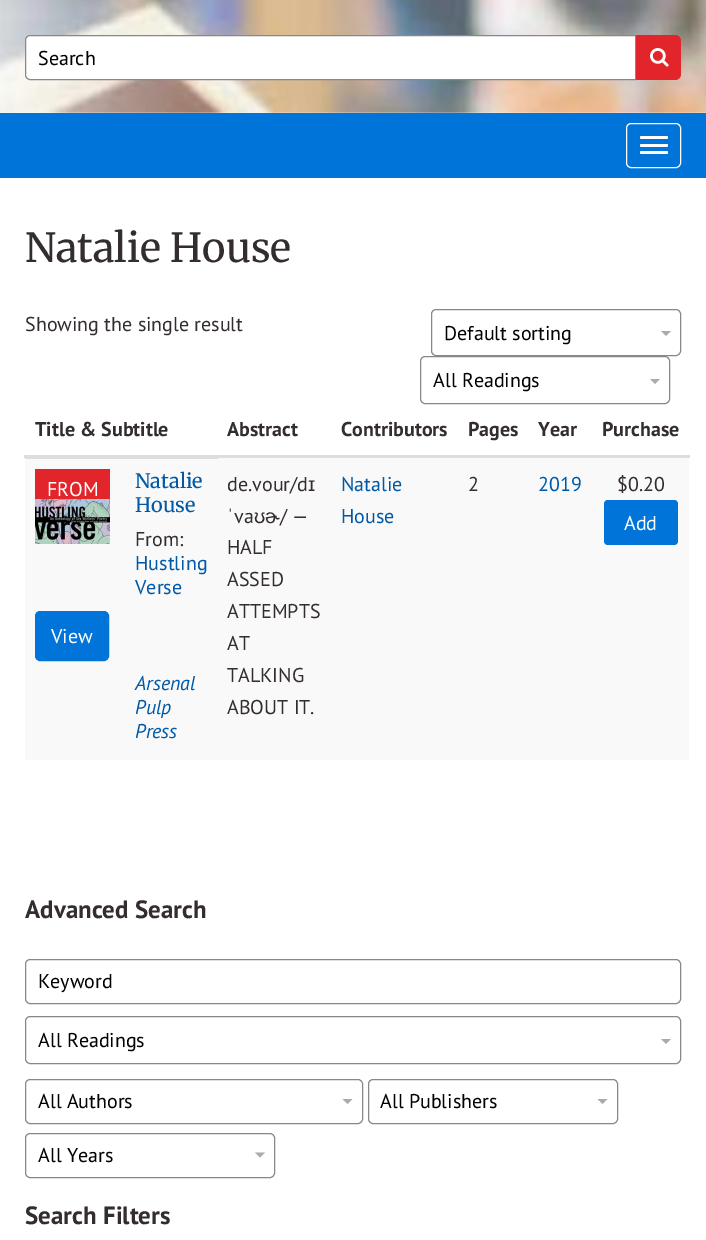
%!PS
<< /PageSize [706 1240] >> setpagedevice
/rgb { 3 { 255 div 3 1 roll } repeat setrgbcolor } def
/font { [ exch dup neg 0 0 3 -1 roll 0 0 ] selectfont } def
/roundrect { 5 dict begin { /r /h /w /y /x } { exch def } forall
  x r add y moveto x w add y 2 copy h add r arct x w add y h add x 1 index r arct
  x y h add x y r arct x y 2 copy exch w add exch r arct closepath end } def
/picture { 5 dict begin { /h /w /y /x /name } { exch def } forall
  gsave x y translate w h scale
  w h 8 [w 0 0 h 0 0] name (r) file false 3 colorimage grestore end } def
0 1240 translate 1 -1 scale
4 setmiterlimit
255 255 255 rgb
0 0 706 1240 rectfill
(img/1.rgb) 0 0 706 113 picture
30 35.5 moveto 635.5 35.5 lineto 635.5 79.5 lineto 30 79.5 lineto 27.5 79.5 25.5 77.5 25.5 75 curveto 25.5 40 lineto 25.5 37.5 27.5 35.5 30 35.5 curveto closepath gsave fill grestore
136 136 136 rgb
stroke
226 37 42 rgb
636 35 moveto 675 35 lineto 678.5 35 681 37.5 681 41 curveto 681 74 lineto 681 77.5 678.5 80 675 80 curveto 636 80 lineto closepath fill
(img/2.rgb) 650 48 19 19 picture
0 116 217 rgb
0 113 706 65 rectfill
255 255 255 rgb
626.5 123.5 54 44 4.5 roundrect stroke
640 136 28 3 1.5 roundrect fill
640 144 28 3 1.5 roundrect fill
640 151 28 3 1.5 roundrect fill
136 136 136 rgb
431.5 309.5 249 46 4.5 roundrect stroke
171 171 171 rgb
661 331 moveto 671 331 lineto 666 336 lineto closepath fill
136 136 136 rgb
420.5 356.5 249 47 4.5 roundrect stroke
171 171 171 rgb
650 379 moveto 660 379 lineto 655 384 lineto closepath fill
[
  [24 455 666 3 221 221 221]
  [25 458 664 302 249 249 249]
  [25 458 193 1 221 221 221]
  [35 469 75 30 226 37 42]
] { aload pop rgb rectfill } forall
(img/3.rgb) 35 499 75 45 picture
0 116 217 rgb
35.5 611.5 73 49 4.5 roundrect gsave fill grestore
stroke
604 500 74 45 4 roundrect fill
136 136 136 rgb
25.5 959.5 655 44 4.5 roundrect stroke
25.5 1016.5 655 47 4.5 roundrect stroke
171 171 171 rgb
661 1039 moveto 671 1039 lineto 666 1044 lineto closepath fill
136 136 136 rgb
25.5 1079.5 337 44 4.5 roundrect stroke
171 171 171 rgb
342.5 1099 moveto 352.5 1099 lineto 347.5 1104 lineto closepath fill
136 136 136 rgb
368.5 1079.5 249 44 4.5 roundrect stroke
171 171 171 rgb
597.5 1099 moveto 607.5 1099 lineto 602.5 1104 lineto closepath fill
136 136 136 rgb
25.5 1133.5 249 44 4.5 roundrect stroke
171 171 171 rgb
255 1152.5 moveto 265 1152.5 lineto 260 1157.5 lineto closepath fill
/PTSans-Regular 20 font
0 0 0 rgb
38 65 moveto (Search) show
/Merriweather-Regular 40 font
51 45 49 rgb
25 262 moveto (Natalie House) show
/PTSans-Regular 20 font
25 331 moveto (Showing the single result) show
0 0 0 rgb
444 340 moveto (Default sorting) show
433 387 moveto (All Readings) show
/PTSans-Bold 20 font
51 45 49 rgb
[
  [(Title & Subtitle) 35 436]
  [(Abstract) 227 436]
  [(Contributors) 341 436]
  [(Pages) 468 436]
  [(Year) 538 436]
  [(Purchase) 602 436]
] { aload pop moveto show } forall
/PTSans-Regular 20 font
255 255 255 rgb
47 496 moveto (FROM) show
/Merriweather-Regular 20 font
0 89 166 rgb
135 488 moveto (Natalie) show
135 512 moveto (House) show
/PTSans-Regular 20 font
51 45 49 rgb
135 546 moveto (From:) show
0 89 166 rgb
135 570 moveto (Hustling) show
135 594 moveto (Verse) show
255 255 255 rgb
51 643 moveto (View) show
/PTSans-Italic 20 font
0 89 166 rgb
[
  [(Arsenal) 135 690]
  [(Pulp) 135 714]
  [(Press) 135 738]
] { aload pop moveto show } forall
/PTSans-Regular 20 font
51 45 49 rgb
227 491 moveto (de.vour/d) show
/LiberationSans-Regular 20 font
308 491 moveto (ɪ) show
227 523 moveto (ˈ) show
/PTSans-Regular 20 font
234 523 moveto (va) show
/LiberationSans-Regular 20 font
254 523 moveto (ʊɚ) show
/PTSans-Regular 20 font
[
  [(/ —) 280 523]
  [(HALF) 227 554]
  [(ASSED) 227 586]
  [(ATTEMPTS) 227 618]
  [(AT) 227 650]
  [(TALKING) 227 682]
  [(ABOUT IT.) 227 714]
] { aload pop moveto show } forall
0 89 166 rgb
341 491 moveto (Natalie) show
341 523 moveto (House) show
51 45 49 rgb
468 491 moveto (2) show
0 89 166 rgb
538 491 moveto (2019) show
51 45 49 rgb
617 491 moveto ($0.20) show
255 255 255 rgb
624 530 moveto (Add) show
/PTSans-Bold 25 font
51 45 49 rgb
25 918 moveto (Advanced Search) show
/PTSans-Regular 20 font
0 0 0 rgb
[
  [(Keyword) 38 988]
  [(All Readings) 38 1047]
  [(All Authors) 38 1108]
  [(All Publishers) 380 1108]
  [(All Years) 38 1162]
] { aload pop moveto show } forall
/PTSans-Bold 25 font
51 45 49 rgb
25 1224 moveto (Search Filters) show
showpage
